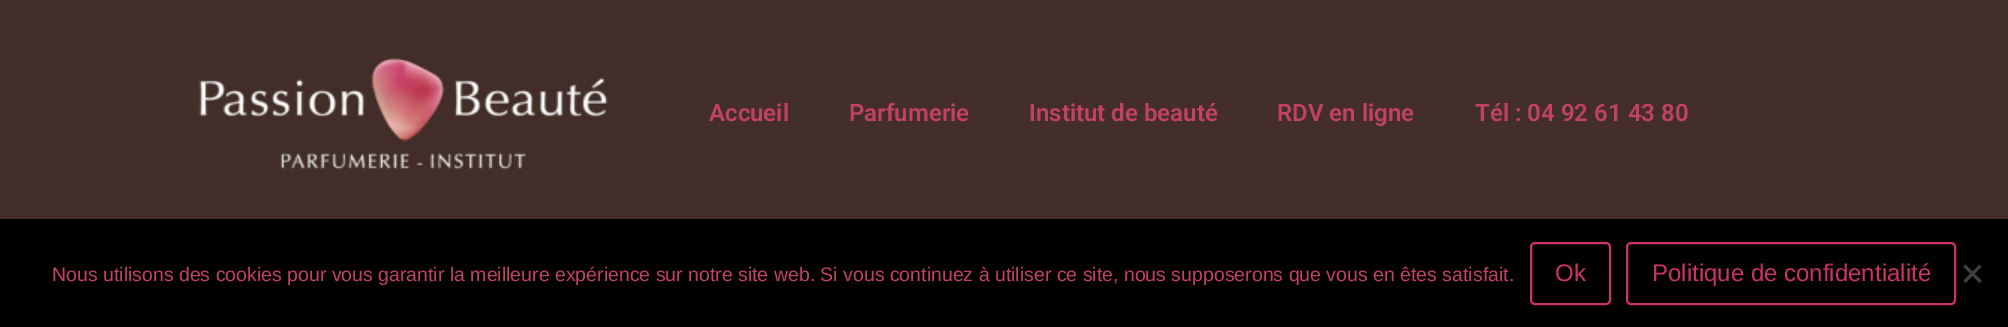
%!PS
<< /PageSize [2008 327] >> setpagedevice
/rgb { 3 { 255 div 3 1 roll } repeat setrgbcolor } def
/font { [ exch dup neg 0 0 3 -1 roll 0 0 ] selectfont } def
/roundrect { 5 dict begin { /r /h /w /y /x } { exch def } forall
  x r add y moveto x w add y 2 copy h add r arct x w add y h add x 1 index r arct
  x y h add x y r arct x y 2 copy exch w add exch r arct closepath end } def
/picture { 5 dict begin { /h /w /y /x /name } { exch def } forall
  gsave x y translate w h scale
  w h 8 [w 0 0 h 0 0] name (r) file false 3 colorimage grestore end } def
0 327 translate 1 -1 scale
4 setmiterlimit
67 46 41 rgb
0 0 2008 327 rectfill
(img/1.rgb) 199 58 409 112 picture
0 0 0 rgb
0 219 2008 108 rectfill
204 51 102 rgb
2 setlinewidth
1531 243 79 61 4 roundrect stroke
1627 243 328 61 4 roundrect stroke
64 64 64 rgb
1979.5 264.5 moveto 1981.5 267 lineto 1965.5 283 lineto 1963.5 280.5 lineto closepath fill
1963.5 267 moveto 1965.5 264.5 lineto 1981.5 280.5 lineto 1979.5 283 lineto closepath fill
/Roboto-SemiBold 24 font
194 66 97 rgb
[
  [(Accueil) 709 121]
  [(Parfumerie) 849 121]
  [(Institut de beauté) 1029 121]
  [(RDV en ligne) 1277 121]
  [(Tél : 04 92 61 43 80) 1475 121]
] { aload pop moveto show } forall
/LiberationSans-Regular 19.5 font
52 281 moveto (Nous utilisons des cookies pour vous garantir la meilleure expérience sur notre site web. Si vous continuez à utiliser ce site, nous supposerons que vous en êtes satisfait.) show
/LiberationSans-Regular 24 font
204 51 102 rgb
1555 281 moveto (Ok) show
1652 281 moveto (Politique de confidentialité) show
showpage
